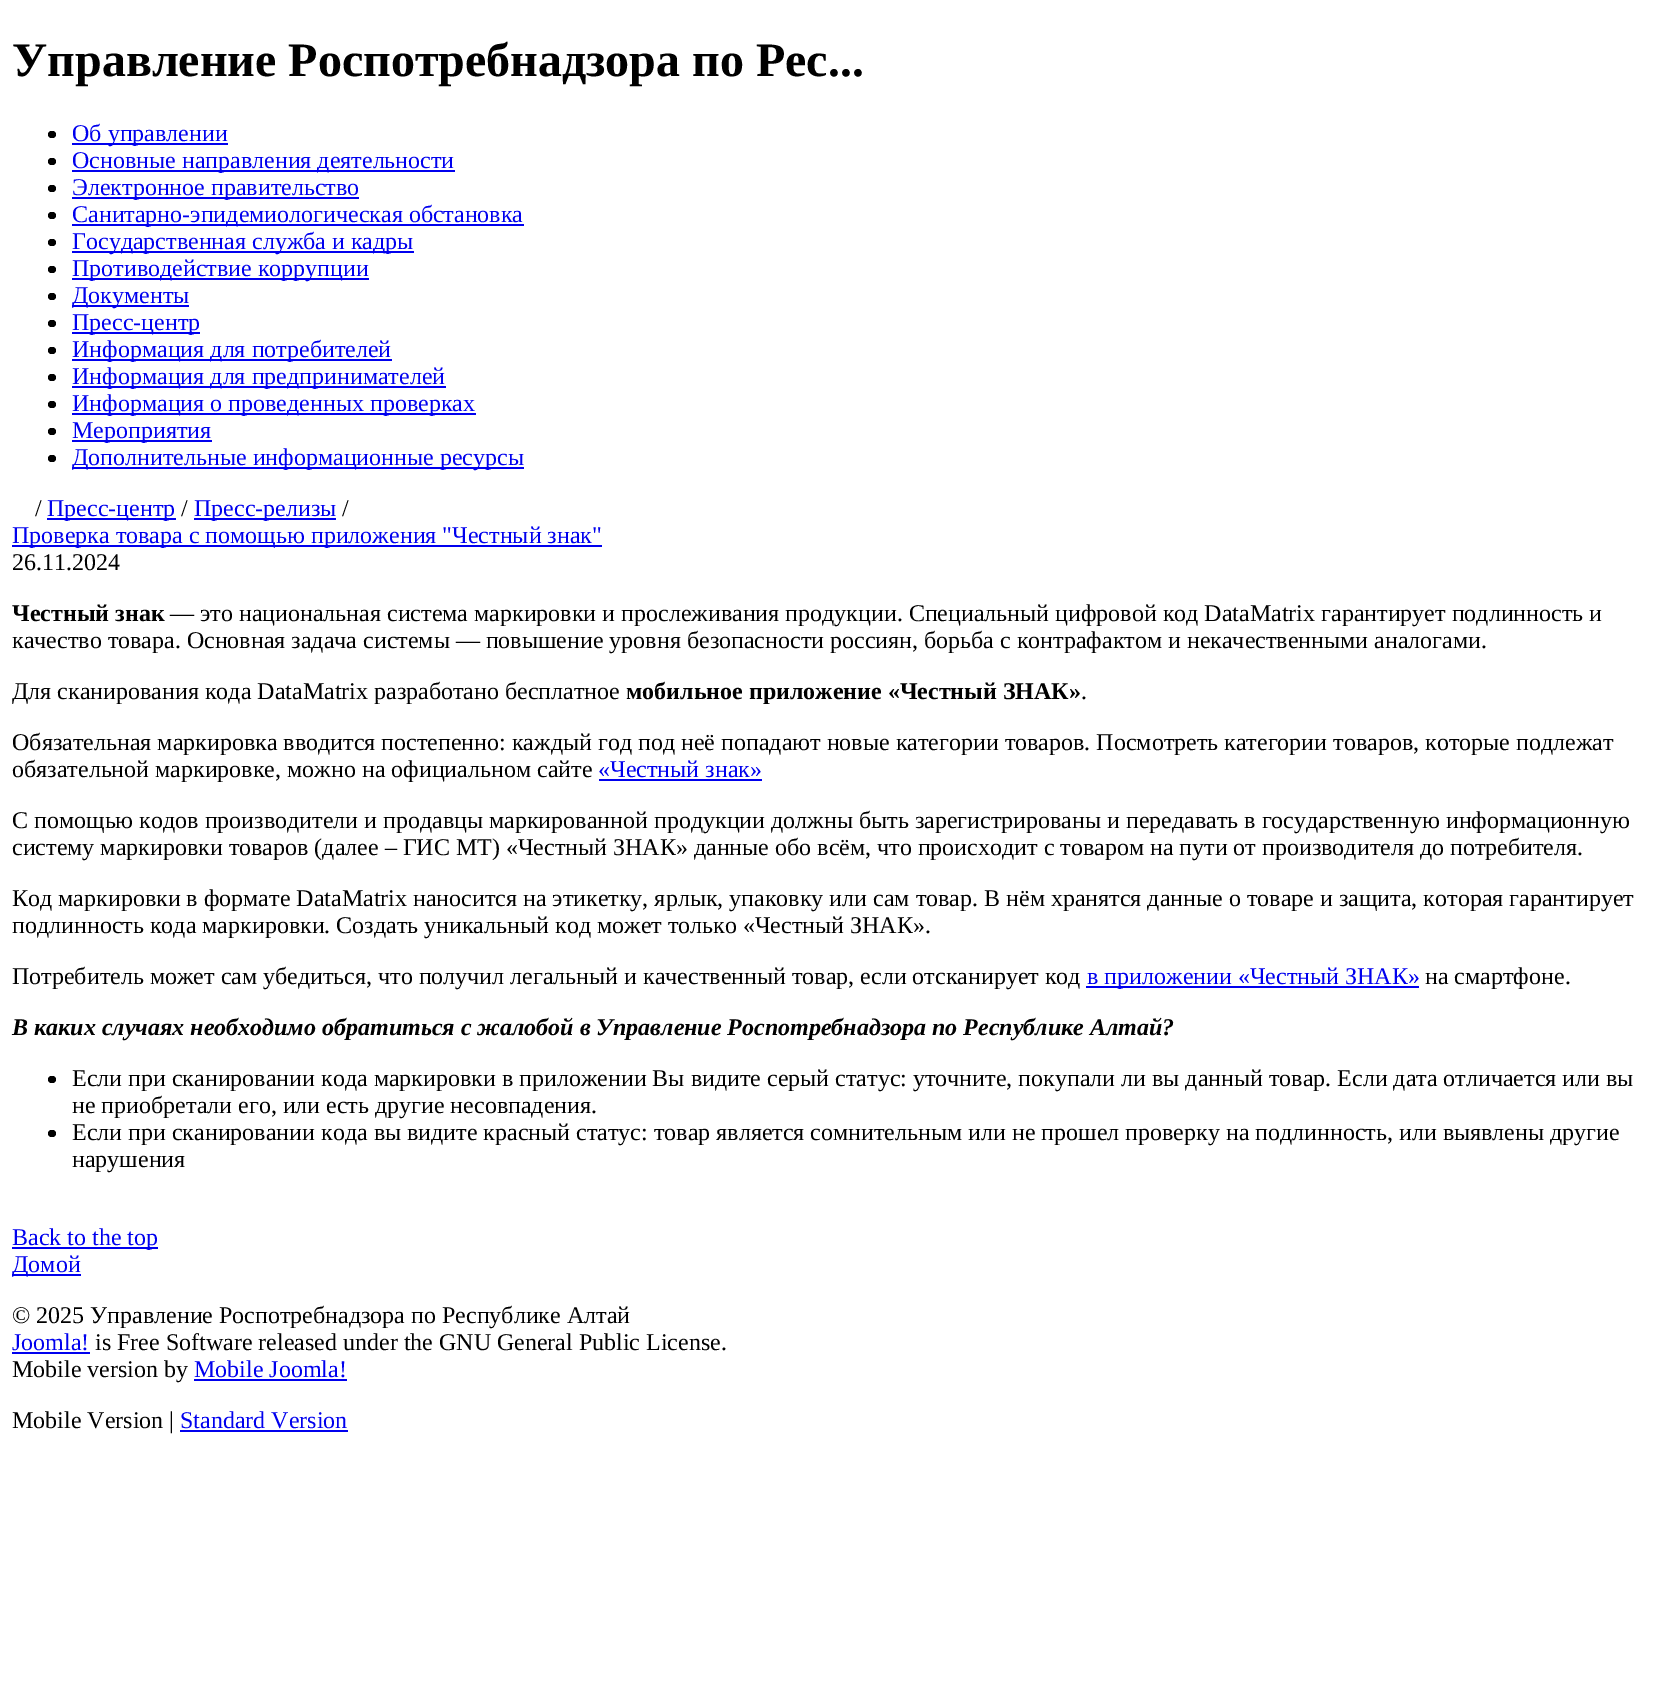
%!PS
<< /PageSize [1673 1690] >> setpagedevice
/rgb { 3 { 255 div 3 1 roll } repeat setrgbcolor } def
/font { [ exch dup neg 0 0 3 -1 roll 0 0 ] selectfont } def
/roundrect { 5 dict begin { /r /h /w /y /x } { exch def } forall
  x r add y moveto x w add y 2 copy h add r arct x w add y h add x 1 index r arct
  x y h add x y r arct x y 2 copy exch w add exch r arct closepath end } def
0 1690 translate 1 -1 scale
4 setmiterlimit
255 255 255 rgb
0 0 1673 1690 rectfill
0 0 0 rgb
48 131 8 7 3.5 roundrect fill
0 0 238 rgb
72 143 156 2 rectfill
0 0 0 rgb
48 158 8 7 3.5 roundrect fill
0 0 238 rgb
72 170 383 2 rectfill
0 0 0 rgb
48 185 8 7 3.5 roundrect fill
0 0 238 rgb
72 197 287 2 rectfill
0 0 0 rgb
48 212 8 7 3.5 roundrect fill
0 0 238 rgb
72 224 452 2 rectfill
0 0 0 rgb
48 239 8 7 3.5 roundrect fill
0 0 238 rgb
72 251 342 2 rectfill
0 0 0 rgb
48 266 8 7 3.5 roundrect fill
0 0 238 rgb
72 278 297 2 rectfill
0 0 0 rgb
48 293 8 7 3.5 roundrect fill
0 0 238 rgb
72 305 117 2 rectfill
0 0 0 rgb
48 320 8 7 3.5 roundrect fill
0 0 238 rgb
72 332 128 2 rectfill
0 0 0 rgb
48 347 8 7 3.5 roundrect fill
0 0 238 rgb
72 359 320 2 rectfill
0 0 0 rgb
48 374 8 7 3.5 roundrect fill
0 0 238 rgb
72 386 374 2 rectfill
0 0 0 rgb
48 401 8 7 3.5 roundrect fill
0 0 238 rgb
72 413 404 2 rectfill
0 0 0 rgb
48 428 8 7 3.5 roundrect fill
0 0 238 rgb
72 440 140 2 rectfill
0 0 0 rgb
48 455 8 7 3.5 roundrect fill
[
  [72 467 452 2 0 0 238]
  [47 518 129 2 0 0 238]
  [194 518 142 2 0 0 238]
  [12 545 590 2 0 0 238]
  [599 779 163 2 0 0 238]
  [1086 986 333 2 0 0 238]
] { aload pop rgb rectfill } forall
0 0 0 rgb
48 1076 8 7 3.5 roundrect fill
48 1130 8 7 3.5 roundrect fill
[
  [12 1247 146 2 0 0 238]
  [12 1274 69 2 0 0 238]
  [12 1352 78 2 0 0 238]
  [194 1379 153 2 0 0 238]
  [180 1430 168 2 0 0 238]
] { aload pop rgb rectfill } forall
/LiberationSerif-Bold 48 font
0 0 0 rgb
12 76 moveto (Управление Роспотребнадзора по Рес...) show
/LiberationSerif-Regular 24 font
0 0 238 rgb
[
  [(Об управлении) 72 141]
  [(Основные направления деятельности) 72 168]
  [(Электронное правительство) 72 195]
  [(Санитарно-эпидемиологическая обстановка) 72 222]
  [(Государственная служба и кадры) 72 249]
  [(Противодействие коррупции) 72 276]
  [(Документы) 72 303]
  [(Пресс-центр) 72 330]
  [(Информация для потребителей) 72 357]
  [(Информация для предпринимателей) 72 384]
  [(Информация о проведенных проверках) 72 411]
  [(Мероприятия) 72 438]
  [(Дополнительные информационные ресурсы) 72 465]
] { aload pop moveto show } forall
0 0 0 rgb
35 516 moveto (/) show
0 0 238 rgb
47 516 moveto (Пресс-центр) show
0 0 0 rgb
181 516 moveto (/) show
0 0 238 rgb
194 516 moveto (Пресс-релизы) show
0 0 0 rgb
342 516 moveto (/) show
0 0 238 rgb
12 543 moveto (Проверка товара с помощью приложения "Честный знак") show
0 0 0 rgb
12 570 moveto (26.11.2024) show
/LiberationSerif-Bold 24 font
12 621 moveto (Честный знак) show
/LiberationSerif-Regular 24 font
[
  [(— это национальная система маркировки и прослеживания продукции. Специальный цифровой код DataMatrix гарантирует подлинность и) 170 621]
  [(качество товара. Основная задача системы — повышение уровня безопасности россиян, борьба с контрафактом и некачественными аналогами.) 12 648]
  [(Для сканирования кода DataMatrix разработано бесплатное) 12 699]
] { aload pop moveto show } forall
/LiberationSerif-Bold 24 font
626 699 moveto (мобильное приложение «Честный ЗНАК») show
/LiberationSerif-Regular 24 font
[
  [(.) 1081 699]
  [(Обязательная маркировка вводится постепенно: каждый год под неё попадают новые категории товаров. Посмотреть категории товаров, которые подлежат) 12 750]
  [(обязательной маркировке, можно на официальном сайте) 12 777]
] { aload pop moveto show } forall
0 0 238 rgb
598 777 moveto («Честный знак») show
0 0 0 rgb
[
  [(С помощью кодов производители и продавцы маркированной продукции должны быть зарегистрированы и передавать в государственную информационную) 12 828]
  [(систему маркировки товаров \(далее – ГИС МТ\) «Честный ЗНАК» данные обо всём, что происходит с товаром на пути от производителя до потребителя.) 12 855]
  [(Код маркировки в формате DataMatrix наносится на этикетку, ярлык, упаковку или сам товар. В нём хранятся данные о товаре и защита, которая гарантирует) 12 906]
  [(подлинность кода маркировки. Создать уникальный код может только «Честный ЗНАК».) 12 933]
  [(Потребитель может сам убедиться, что получил легальный и качественный товар, если отсканирует код) 12 984]
] { aload pop moveto show } forall
0 0 238 rgb
1087 984 moveto (в приложении «Честный ЗНАК») show
0 0 0 rgb
1425 984 moveto (на смартфоне.) show
/LiberationSerif-BoldItalic 24 font
12 1035 moveto (В каких случаях необходимо обратиться с жалобой в Управление Роспотребнадзора по Республике Алтай?) show
/LiberationSerif-Regular 24 font
[
  [(Если при сканировании кода маркировки в приложении Вы видите серый статус: уточните, покупали ли вы данный товар. Если дата отличается или вы) 72 1086]
  [(не приобретали его, или есть другие несовпадения.) 72 1113]
  [(Если при сканировании кода вы видите красный статус: товар является сомнительным или не прошел проверку на подлинность, или выявлены другие) 72 1140]
  [(нарушения) 72 1167]
] { aload pop moveto show } forall
0 0 238 rgb
12 1245 moveto (Back to the top) show
12 1272 moveto (Домой) show
0 0 0 rgb
12 1323 moveto (© 2025 Управление Роспотребнадзора по Республике Алтай) show
0 0 238 rgb
12 1350 moveto (Joomla!) show
0 0 0 rgb
95 1350 moveto (is Free Software released under the GNU General Public License.) show
12 1377 moveto (Mobile version by) show
0 0 238 rgb
194 1377 moveto (Mobile Joomla!) show
0 0 0 rgb
12 1428 moveto (Mobile Version |) show
0 0 238 rgb
180 1428 moveto (Standard Version) show
showpage
